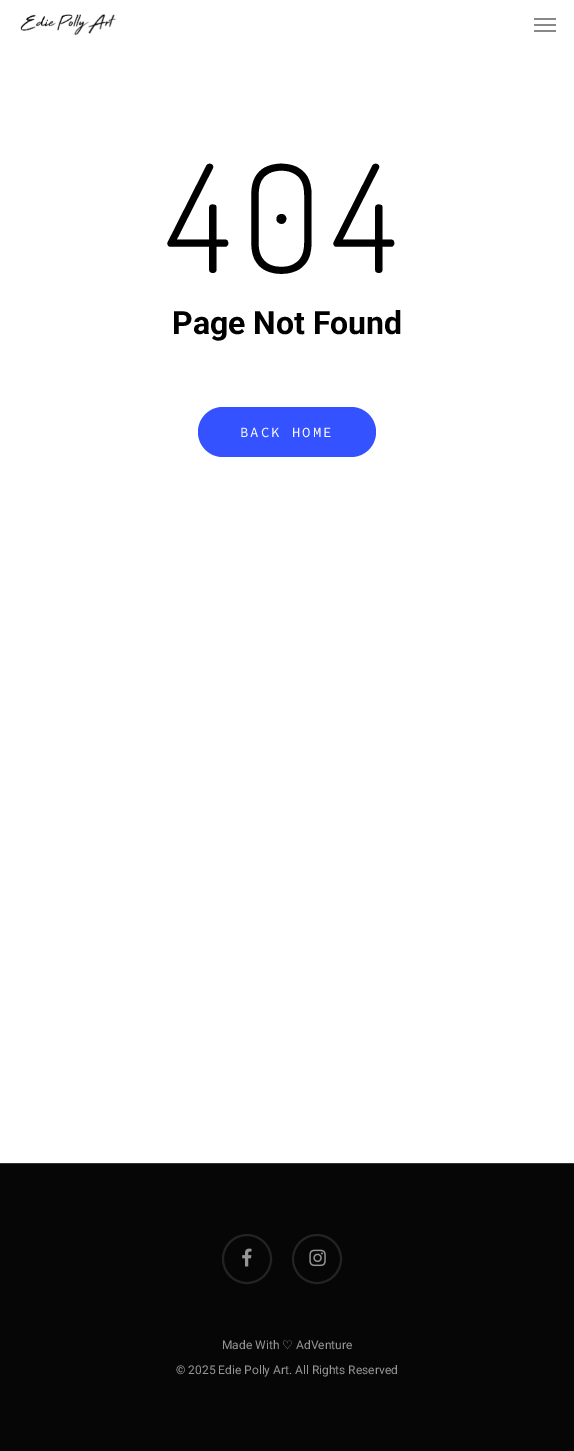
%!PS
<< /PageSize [574 1451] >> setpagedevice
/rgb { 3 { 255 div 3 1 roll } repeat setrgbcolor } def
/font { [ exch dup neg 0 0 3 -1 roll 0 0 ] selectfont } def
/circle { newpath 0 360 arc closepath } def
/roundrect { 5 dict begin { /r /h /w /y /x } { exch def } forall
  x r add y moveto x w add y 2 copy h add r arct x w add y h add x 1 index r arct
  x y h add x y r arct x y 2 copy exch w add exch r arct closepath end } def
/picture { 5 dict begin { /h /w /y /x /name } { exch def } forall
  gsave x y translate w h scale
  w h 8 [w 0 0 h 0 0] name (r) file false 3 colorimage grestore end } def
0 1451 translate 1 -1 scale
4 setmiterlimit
255 255 255 rgb
0 0 574 1451 rectfill
(img/1.rgb) 20 14 96 22 picture
[
  [534 18 22 2 136 136 136]
  [534 30 22 2 136 136 136]
  [534 24 22 2 136 136 136]
] { aload pop rgb rectfill } forall
52 82 255 rgb
198 407 178 50 25 roundrect fill
6 6 6 rgb
0 1164 574 287 rectfill
51 51 51 rgb
0 1163 574 1 rectfill
(img/2.rgb) 242 1248 10 19 picture
35 35 35 rgb
2 setlinewidth
247 1259 24 circle stroke
(img/3.rgb) 309 1249 17 18 picture
317 1259 24 circle stroke
/Dosis-Light 150 font
0 0 0 rgb
166 273 moveto 11 0 (404) ashow
/Roboto-Bold 32 font
172 334 moveto (Page Not Found) show
/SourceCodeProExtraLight-ExtraLight 14 font
255 255 255 rgb
240 437 moveto 2 0 (BACK HOME) ashow
/Roboto-Regular 12 font
150 150 150 rgb
222 1349 moveto (Made With) show
/DejaVuSans-Regular 12 font
282 1349 moveto (♡) show
/Roboto-Regular 12 font
296 1349 moveto (AdVenture) show
176 1374 moveto (© 2025 Edie Polly Art. All Rights Reserved) show
showpage
